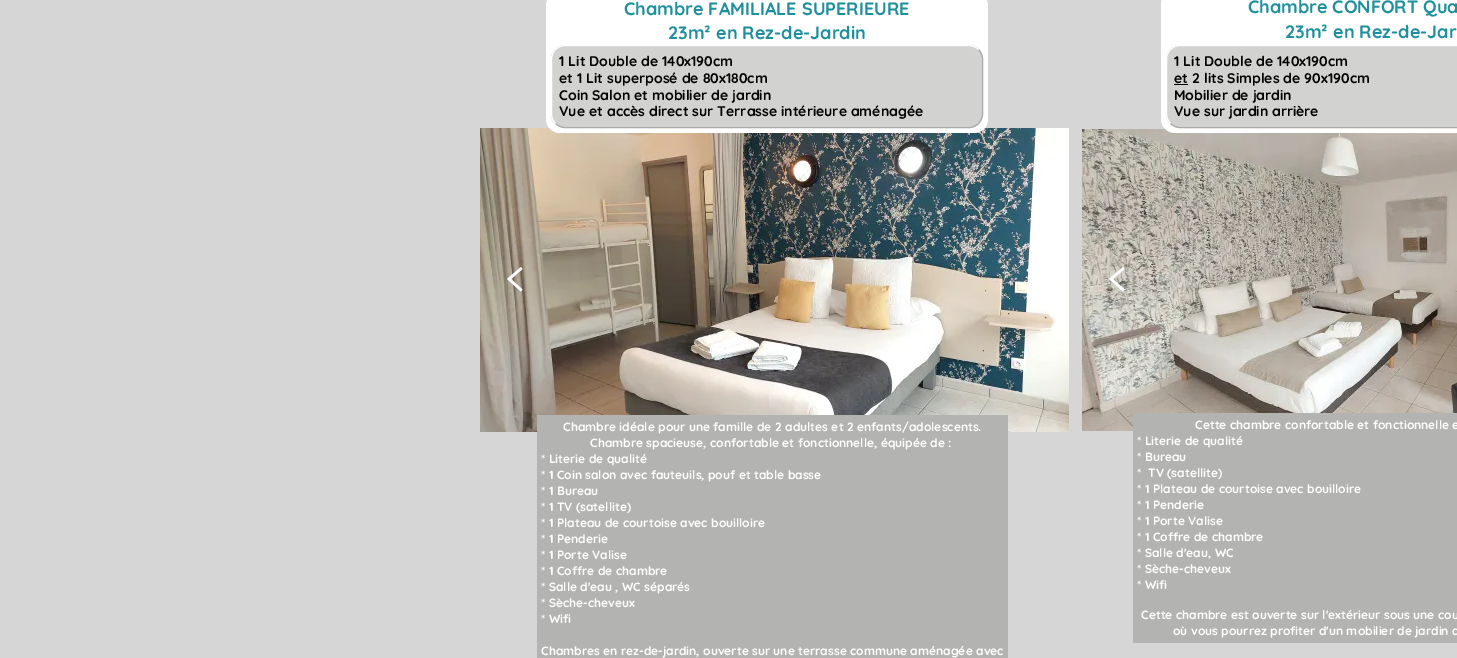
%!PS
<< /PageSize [1457 658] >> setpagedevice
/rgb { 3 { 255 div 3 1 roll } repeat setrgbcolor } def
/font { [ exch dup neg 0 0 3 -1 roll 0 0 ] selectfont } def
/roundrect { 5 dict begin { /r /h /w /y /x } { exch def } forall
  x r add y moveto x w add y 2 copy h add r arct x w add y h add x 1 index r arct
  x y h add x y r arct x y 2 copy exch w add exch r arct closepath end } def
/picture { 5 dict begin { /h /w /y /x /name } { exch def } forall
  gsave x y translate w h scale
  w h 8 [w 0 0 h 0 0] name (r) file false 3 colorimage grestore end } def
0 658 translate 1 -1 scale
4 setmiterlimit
214 214 214 rgb
0 0 1457 658 rectfill
(img/1.rgb) 480 128 589 304 picture
255 255 255 rgb
546 -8 442 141 14 roundrect fill
210 210 208 rgb
551 45 432 83 14 roundrect fill
170 170 170 rgb
978.5 49.5 moveto 981 52 982.5 55.5 982.5 59 curveto 982.5 114 lineto 982.5 117.5 981 121 978.5 123.5 curveto 976 126 972.5 127.5 969 127.5 curveto 565 127.5 lineto 561.5 127.5 558 126 555.5 123.5 curveto stroke
255 255 255 rgb
555.5 123.5 moveto 553 121 551.5 117.5 551.5 114 curveto 551.5 59 lineto 551.5 55.5 553 52 555.5 49.5 curveto 558 47 561.5 45.5 565 45.5 curveto 969 45.5 lineto 972.5 45.5 976 47 978.5 49.5 curveto stroke
(img/2.rgb) 1082 129 375 302 picture
1161 -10 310 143 14 roundrect fill
210 210 208 rgb
1166 45 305 83 14 roundrect fill
170 170 170 rgb
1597.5 49.5 moveto 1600 52 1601.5 55.5 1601.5 59 curveto 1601.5 114 lineto 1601.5 117.5 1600 121 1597.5 123.5 curveto 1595 126 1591.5 127.5 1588 127.5 curveto 1180 127.5 lineto 1176.5 127.5 1173 126 1170.5 123.5 curveto stroke
255 255 255 rgb
1170.5 123.5 moveto 1168 121 1166.5 117.5 1166.5 114 curveto 1166.5 59 lineto 1166.5 55.5 1168 52 1170.5 49.5 curveto 1173 47 1176.5 45.5 1180 45.5 curveto 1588 45.5 lineto 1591.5 45.5 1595 47 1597.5 49.5 curveto stroke
0 0 0 rgb
1174 84 14 1 rectfill
255 255 255 rgb
507 279 moveto 521 267 lineto 522.5 269 lineto 511 279 lineto 522.5 289.5 lineto 521 291.5 lineto closepath fill
1042 281 moveto 1028 293 lineto 1026.5 291 lineto 1038 281 lineto 1026.5 270.5 lineto 1028 268.5 lineto closepath fill
1109 279 moveto 1123 267 lineto 1124.5 269 lineto 1113 279 lineto 1124.5 289.5 lineto 1123 291.5 lineto closepath fill
179 179 178 rgb
537 415 471 243 rectfill
1133 413 324 230 rectfill
/Quicksand-Bold 18 font
30 144 157 rgb
624 15 moveto (Chambre FAMILIALE SUPERIEURE) show
668 39 moveto (23m² en Rez-de-Jardin) show
/Quicksand-Bold 14 font
0 0 0 rgb
[
  [(1 Lit Double de 140x190cm) 559 66]
  [(et 1 Lit superposé de 80x180cm) 559 83]
  [(Coin Salon et mobilier de jardin) 559 100]
  [(Vue et accès direct sur Terrasse intérieure aménagée) 559 116]
] { aload pop moveto show } forall
/Quicksand-Bold 18 font
30 144 157 rgb
1248 13 moveto (Chambre CONFORT Qua) show
1285 38 moveto (23m² en Rez-de-Jar) show
/Quicksand-Bold 14 font
0 0 0 rgb
[
  [(1 Lit Double de 140x190cm) 1174 66]
  [(et 2 lits Simples de 90x190cm) 1174 83]
  [(Mobilier de jardin) 1174 100]
  [(Vue sur jardin arrière) 1174 116]
] { aload pop moveto show } forall
/Quicksand-Bold 12 font
255 255 255 rgb
[
  [(Chambre idéale pour une famille de 2 adultes et 2 enfants/adolescents.) 563 431]
  [(Chambre spacieuse, confortable et fonctionnelle, équipée de :) 590 447]
  [(* Literie de qualité) 541 463]
  [(* 1 Coin salon avec fauteuils, pouf et table basse) 541 479]
  [(* 1 Bureau) 541 495]
  [(* 1 TV \(satellite\)) 541 511]
  [(* 1 Plateau de courtoise avec bouilloire) 541 527]
  [(* 1 Penderie) 541 543]
  [(* 1 Porte Valise) 541 559]
  [(* 1 Coffre de chambre) 541 575]
  [(* Salle d'eau , WC séparés) 541 591]
  [(* Sèche-cheveux) 541 607]
  [(* Wifi) 541 623]
  [(Chambres en rez-de-jardin, ouverte sur une terrasse commune aménagée avec) 541 655]
  [(Cette chambre confortable et fonctionnelle e) 1195 429]
  [(* Literie de qualité) 1137 445]
  [(* Bureau) 1137 461]
  [(*  TV \(satellite\)) 1137 477]
  [(* 1 Plateau de courtoise avec bouilloire) 1137 493]
  [(* 1 Penderie) 1137 509]
  [(* 1 Porte Valise) 1137 525]
  [(* 1 Coffre de chambre) 1137 541]
  [(* Salle d'eau, WC) 1137 557]
  [(* Sèche-cheveux) 1137 573]
  [(* Wifi) 1137 589]
  [(Cette chambre est ouverte sur l'extérieur sous une cou) 1141 619]
  [(où vous pourrez profiter d'un mobilier de jardin d) 1173 635]
] { aload pop moveto show } forall
showpage
